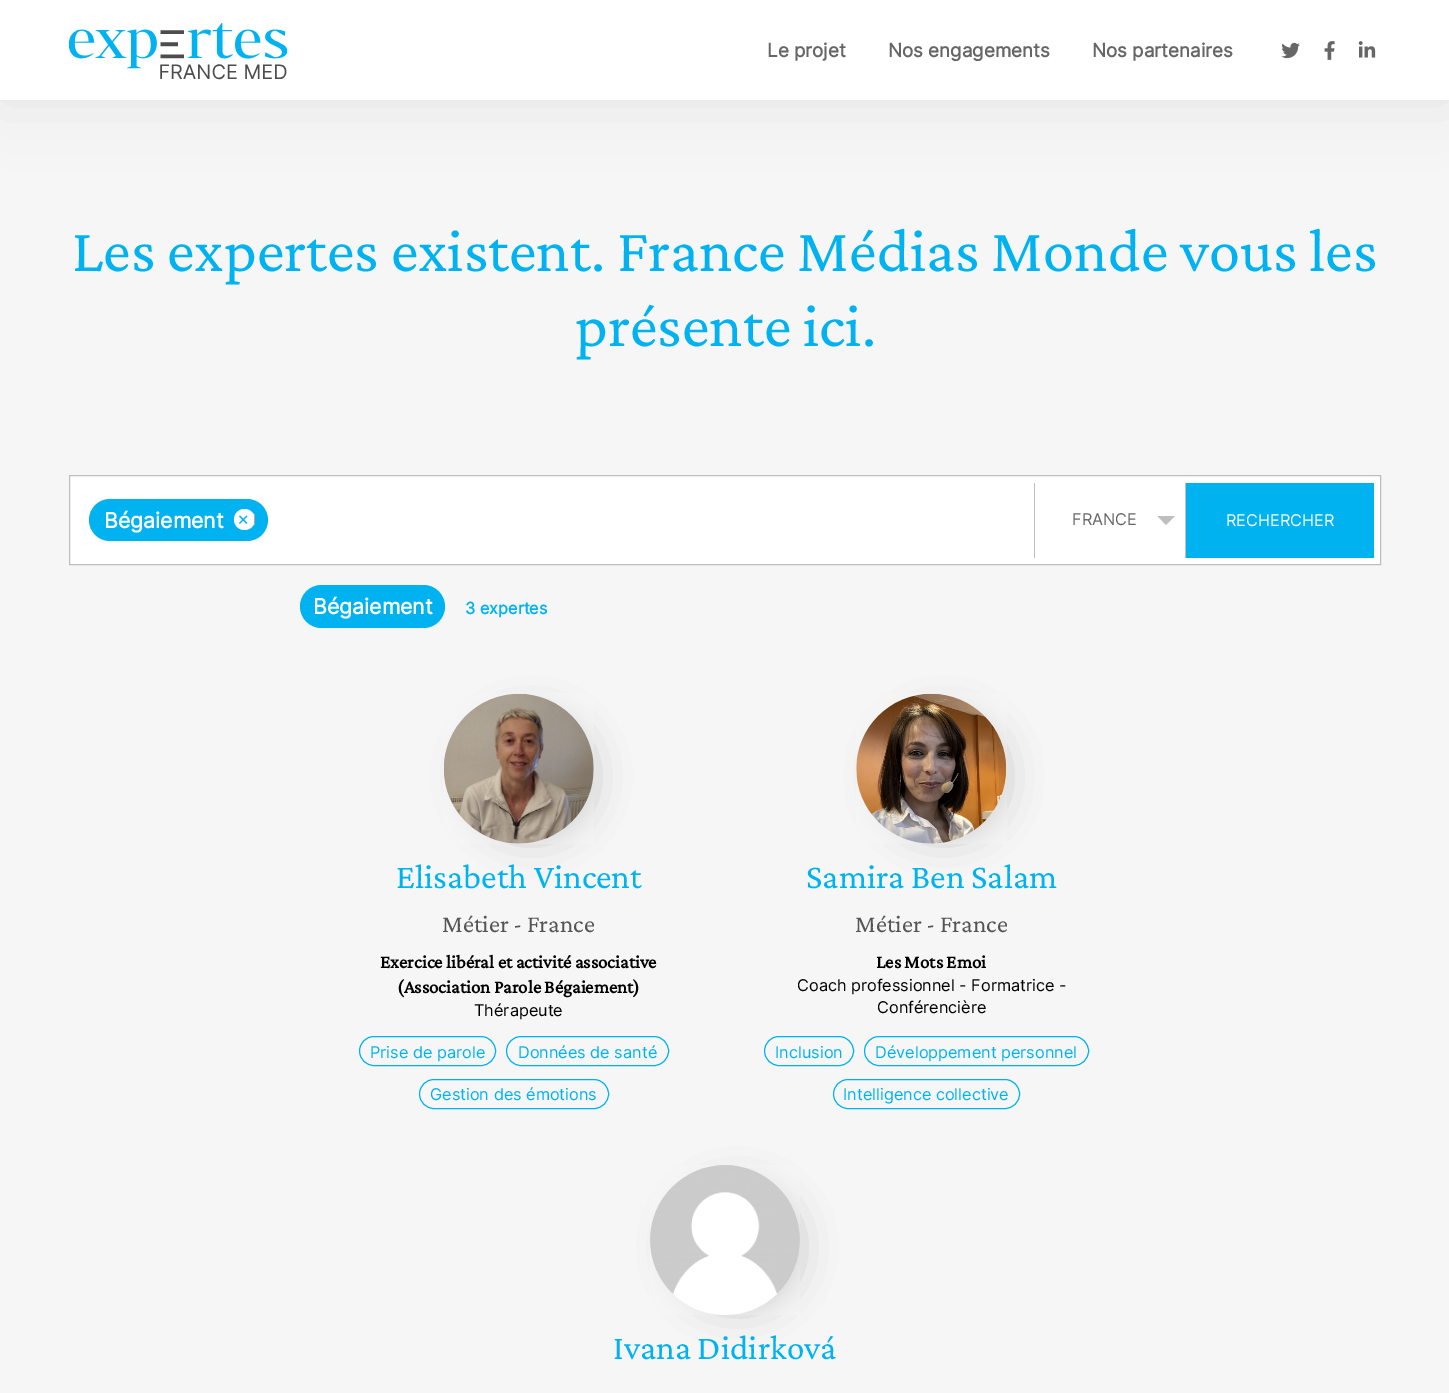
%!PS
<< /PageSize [1449 1393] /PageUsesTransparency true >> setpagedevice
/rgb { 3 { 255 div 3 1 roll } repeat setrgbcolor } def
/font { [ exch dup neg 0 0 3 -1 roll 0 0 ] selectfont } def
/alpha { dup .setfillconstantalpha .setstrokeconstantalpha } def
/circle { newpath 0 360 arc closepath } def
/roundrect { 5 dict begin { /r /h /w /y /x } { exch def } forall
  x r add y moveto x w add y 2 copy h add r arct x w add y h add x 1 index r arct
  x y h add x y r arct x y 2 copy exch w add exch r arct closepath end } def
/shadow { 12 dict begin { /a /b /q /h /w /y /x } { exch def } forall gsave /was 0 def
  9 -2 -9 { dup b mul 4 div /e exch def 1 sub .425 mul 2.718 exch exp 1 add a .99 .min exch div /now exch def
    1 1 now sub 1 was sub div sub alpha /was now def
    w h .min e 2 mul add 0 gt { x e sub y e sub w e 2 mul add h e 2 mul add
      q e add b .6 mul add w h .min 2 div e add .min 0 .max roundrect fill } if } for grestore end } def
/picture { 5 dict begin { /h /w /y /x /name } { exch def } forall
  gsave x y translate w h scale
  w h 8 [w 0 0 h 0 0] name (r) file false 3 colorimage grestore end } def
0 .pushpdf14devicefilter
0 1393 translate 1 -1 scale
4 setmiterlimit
246 246 246 rgb
0 0 1449 1393 rectfill
0 0 0 rgb
0 0 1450 100 0 31 0.07 shadow
255 255 255 rgb
0 0 1449 100 rectfill
(img/1.rgb) 69 23 219 57 picture
(img/2.rgb) 1281 42 19 17 picture
(img/3.rgb) 1324 41 11 19 picture
(img/4.rgb) 1358 41 18 17 picture
69.5 475.5 moveto 1380.5 475.5 lineto 1380.5 564.5 lineto 69.5 564.5 lineto closepath gsave fill grestore
190 190 190 rgb
stroke
1034 483 1 75 rectfill
0 179 240 rgb
89 499 179 42 21 roundrect fill
255 255 255 rgb
244.5 519.5 10.5 circle fill
170 170 170 rgb
254 514 1 11 rectfill
190 190 190 rgb
1157.5 516 moveto 1175 516 lineto 1166 525 lineto closepath fill
1185 483 1 75 rectfill
0 179 240 rgb
1186 483 188 75 rectfill
300 585 145 43 21.5 roundrect fill
0 0 0 rgb
475 720 113 113 56.5 20 0.25 shadow
(img/5.rgb) 443 693 151 151 picture
0 179 240 rgb
359.5 1036.5 136 29 14.5 roundrect stroke
506.5 1036.5 162 29 14.5 roundrect stroke
419.5 1079.5 189 29 14.5 roundrect stroke
0 0 0 rgb
888 720 112 113 56 20 0.25 shadow
(img/6.rgb) 856 693 151 151 picture
0 179 240 rgb
764.5 1036.5 89 29 14.5 roundrect stroke
864.5 1036.5 224 29 14.5 roundrect stroke
833.5 1079.5 186 29 14.5 roundrect stroke
0 0 0 rgb
681 1191 113 113 56.5 20 0.25 shadow
(img/7.rgb) 650 1165 150 150 picture
/Inter-Bold 18.75 font
102 102 102 rgb
[
  [(Le projet) 767 57]
  [(Nos engagements) 888 57]
  [(Nos partenaires) 1092 57]
] { aload pop moveto show } forall
/CrimsonPro-Regular 62.5 font
0 179 240 rgb
72 271 moveto (Les expertes existent. France Médias Monde vous les) show
575 346 moveto (présente ici.) show
/Inter-Bold 21.25 font
255 255 255 rgb
104 528 moveto (Bégaiement) show
/Inter-Regular 18.75 font
0 179 240 rgb
237 525 moveto (×) show
/Inter-Regular 16.25 font
102 102 102 rgb
1072 525 moveto (FRANCE) show
255 255 255 rgb
1226 526 moveto (RECHERCHER) show
/Inter-Bold 21.25 font
313 614 moveto (Bégaiement) show
/Inter-Bold 16.25 font
0 179 240 rgb
465 614 moveto (3 expertes) show
/CrimsonPro-Regular 35 font
396 888 moveto (Elisabeth Vincent) show
/CrimsonPro-Regular 25 font
85 85 85 rgb
442 932 moveto (Métier - France) show
/CrimsonPro-Bold 18.75 font
0 0 0 rgb
380 968 moveto (Exercice libéral et activité associative) show
397 993 moveto (\(Association Parole Bégaiement\)) show
/Inter-Regular 16.25 font
474 1016 moveto (Thérapeute) show
0 179 240 rgb
[
  [(Prise de parole) 370 1058]
  [(Données de santé) 518 1058]
  [(Gestion des émotions) 430 1100]
] { aload pop moveto show } forall
/CrimsonPro-Regular 35 font
806 888 moveto (Samira Ben Salam) show
/CrimsonPro-Regular 25 font
85 85 85 rgb
855 932 moveto (Métier - France) show
/CrimsonPro-Bold 18.75 font
0 0 0 rgb
876 968 moveto (Les Mots Emoi) show
/Inter-Regular 16.25 font
797 991 moveto (Coach professionnel - Formatrice -) show
877 1013 moveto (Conférencière) show
0 179 240 rgb
[
  [(Inclusion) 775 1058]
  [(Développement personnel) 875 1058]
  [(Intelligence collective) 843 1100]
] { aload pop moveto show } forall
/CrimsonPro-Regular 35 font
613 1359 moveto (Ivana Didirková) show
.poppdf14devicefilter showpage
